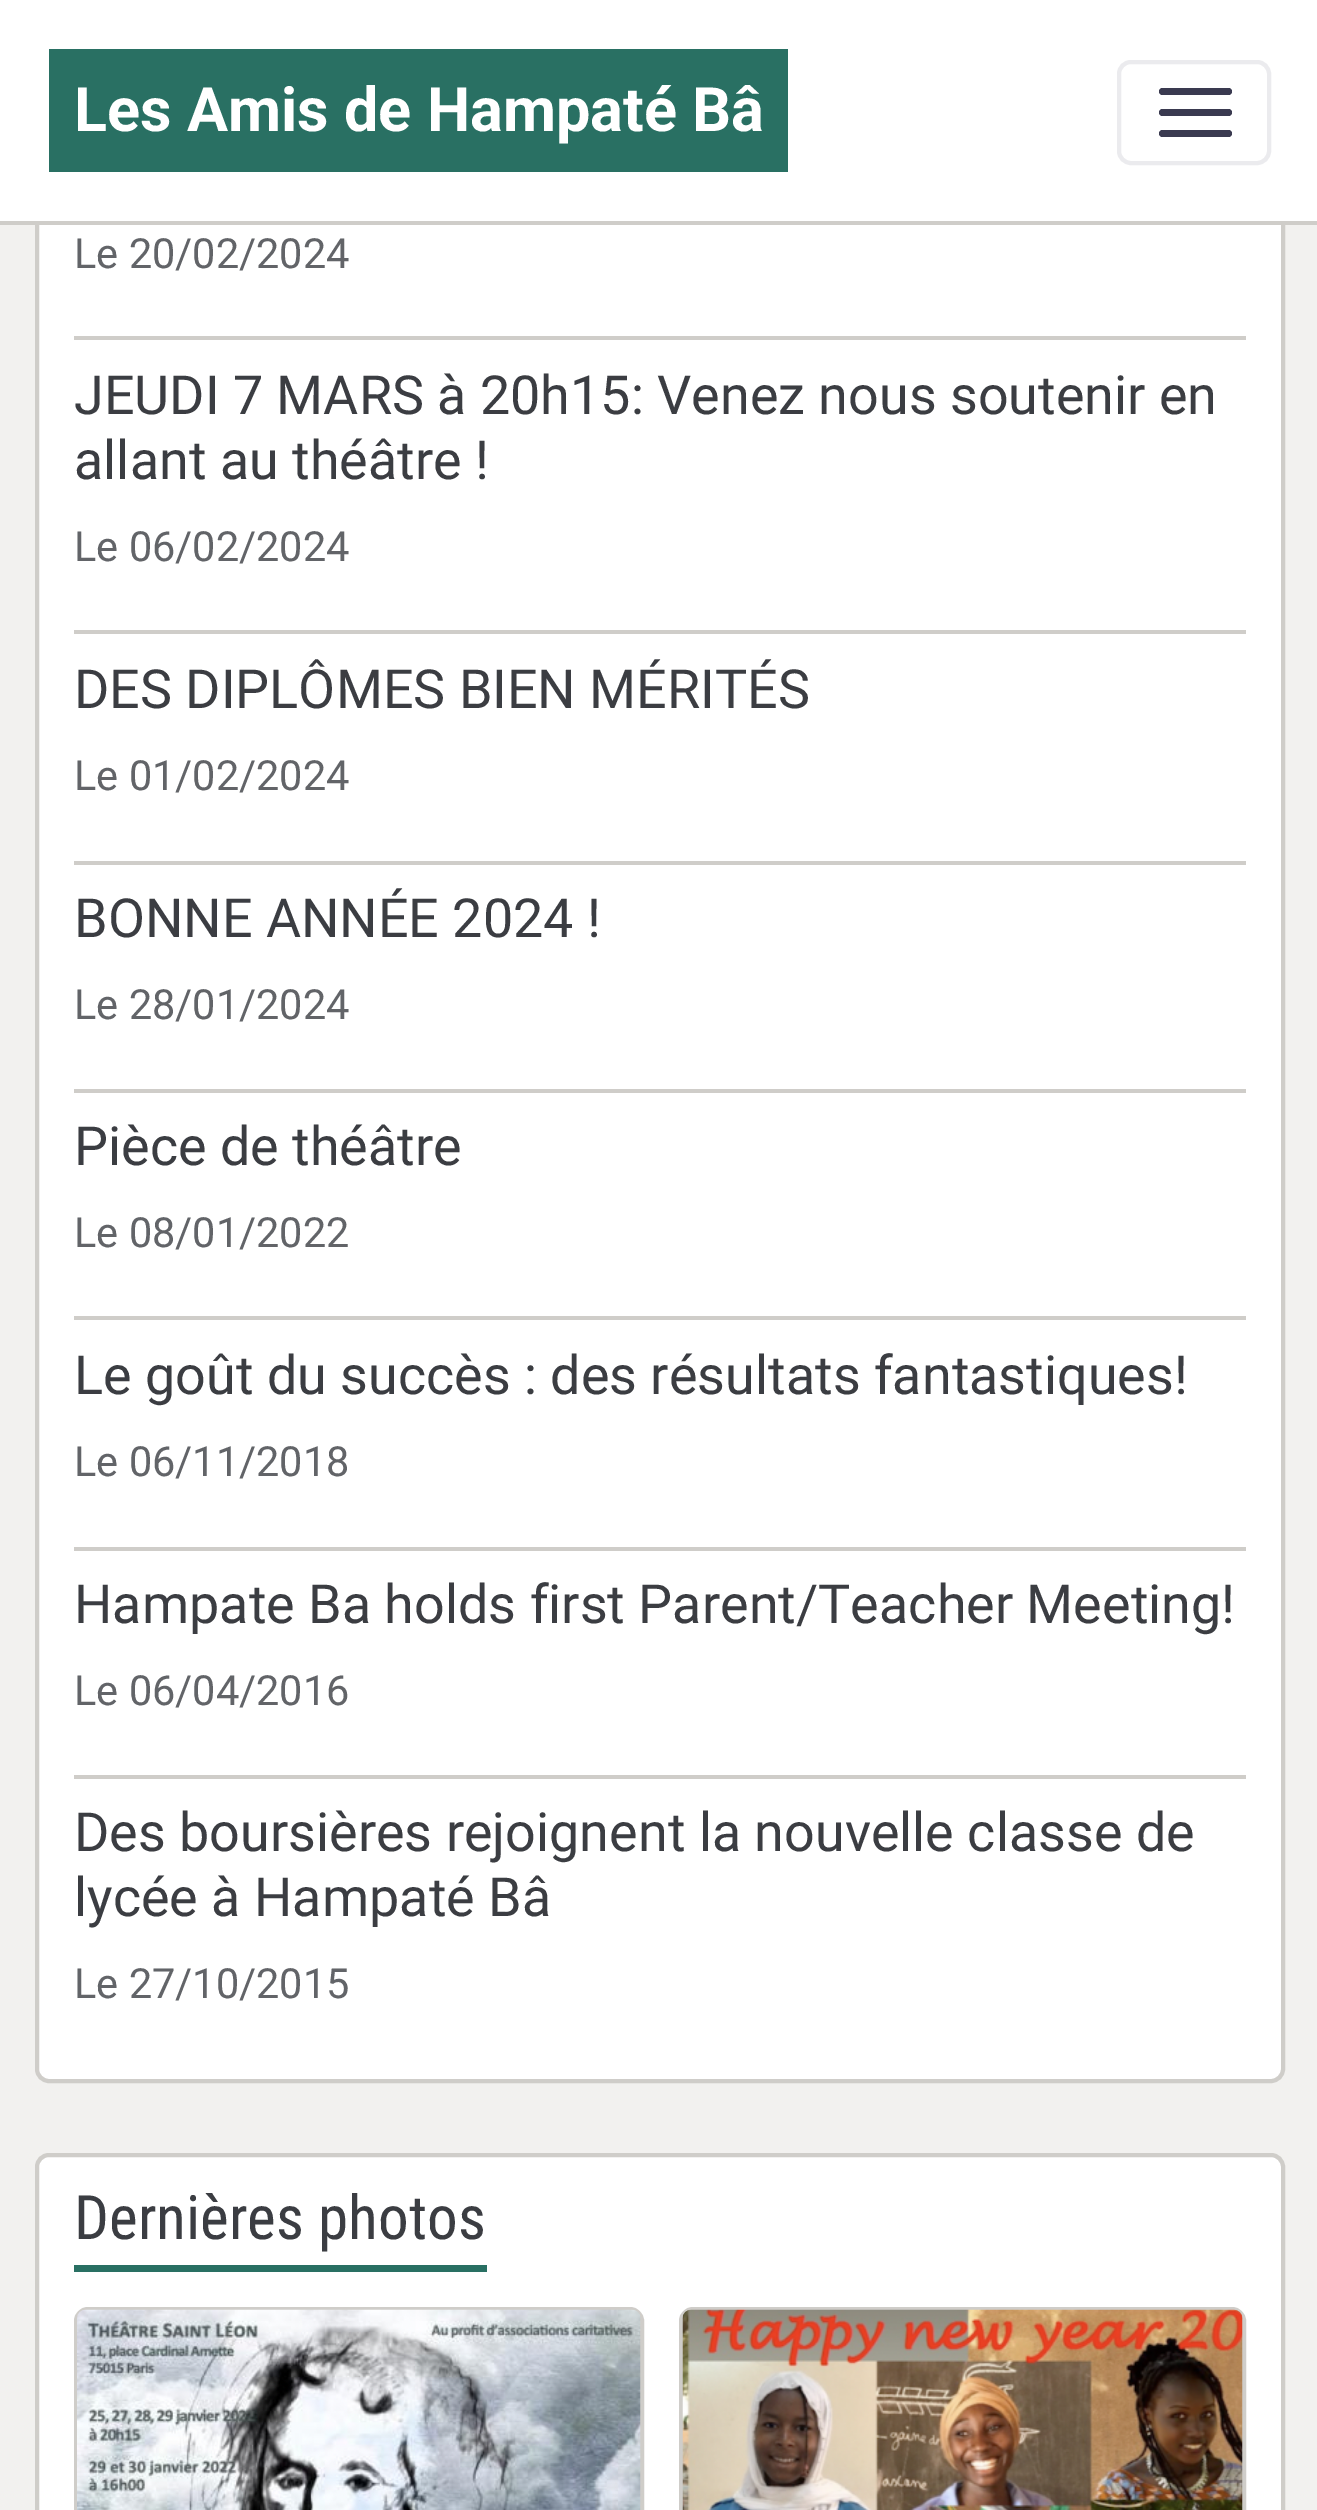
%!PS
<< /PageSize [1317 2510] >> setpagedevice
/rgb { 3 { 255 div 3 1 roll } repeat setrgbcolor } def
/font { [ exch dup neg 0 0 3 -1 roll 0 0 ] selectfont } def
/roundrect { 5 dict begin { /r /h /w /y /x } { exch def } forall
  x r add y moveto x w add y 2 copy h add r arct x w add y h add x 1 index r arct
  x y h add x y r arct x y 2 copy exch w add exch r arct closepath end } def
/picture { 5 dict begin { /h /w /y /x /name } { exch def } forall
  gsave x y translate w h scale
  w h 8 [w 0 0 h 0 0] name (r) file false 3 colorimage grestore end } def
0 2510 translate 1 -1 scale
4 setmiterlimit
242 241 239 rgb
0 0 1317 2510 rectfill
255 255 255 rgb
37 -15 1246 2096 12 roundrect gsave fill grestore
207 205 201 rgb
4 setlinewidth
stroke
[
  [0 0 1317 221 255 255 255]
  [0 221 1317 4 207 205 201]
  [49 49 739 123 41 112 99]
] { aload pop rgb rectfill } forall
235 235 238 rgb
1119 62 150 101 12 roundrect stroke
58 58 80 rgb
1159 88 73 7 3.5 roundrect fill
1159 109 73 7 3.5 roundrect fill
1159 130 73 7 3.5 roundrect fill
[
  [74 336 1172 4 207 205 201]
  [74 630 1172 4 207 205 201]
  [74 861 1172 4 207 205 201]
  [74 1089 1172 4 207 205 201]
  [74 1316 1172 4 207 205 201]
  [74 1547 1172 4 207 205 201]
  [74 1775 1172 4 207 205 201]
] { aload pop rgb rectfill } forall
255 255 255 rgb
37 2155 1246 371 12 roundrect gsave fill grestore
207 205 201 rgb
stroke
41 112 99 rgb
74 2265 413 7 rectfill
207 205 201 rgb
76 2309 566 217 12 roundrect stroke
(img/1.rgb) 77 2309 564 201 picture
681 2309 563 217 12 roundrect stroke
(img/2.rgb) 682 2309 561 201 picture
/Roboto-Bold 61.25 font
255 255 255 rgb
74 131 moveto (Les Amis de Hampaté Bâ) show
/Roboto-Regular 41.5 font
98 100 104 rgb
74 268 moveto (Le 20/02/2024) show
/Roboto-Regular 53.9 font
59 61 66 rgb
74 414 moveto (JEUDI 7 MARS à 20h15: Venez nous soutenir en) show
74 479 moveto (allant au théâtre !) show
/Roboto-Regular 41.5 font
98 100 104 rgb
74 561 moveto (Le 06/02/2024) show
/Roboto-Regular 53.9 font
59 61 66 rgb
74 708 moveto (DES DIPLÔMES BIEN MÉRITÉS) show
/Roboto-Regular 41.5 font
98 100 104 rgb
74 790 moveto (Le 01/02/2024) show
/Roboto-Regular 53.9 font
59 61 66 rgb
74 937 moveto (BONNE ANNÉE 2024 !) show
/Roboto-Regular 41.5 font
98 100 104 rgb
74 1019 moveto (Le 28/01/2024) show
/Roboto-Regular 53.9 font
59 61 66 rgb
74 1165 moveto (Pièce de théâtre) show
/Roboto-Regular 41.5 font
98 100 104 rgb
74 1247 moveto (Le 08/01/2022) show
/Roboto-Regular 53.9 font
59 61 66 rgb
74 1394 moveto (Le goût du succès : des résultats fantastiques!) show
/Roboto-Regular 41.5 font
98 100 104 rgb
74 1476 moveto (Le 06/11/2018) show
/Roboto-Regular 53.9 font
59 61 66 rgb
74 1623 moveto (Hampate Ba holds first Parent/Teacher Meeting!) show
/Roboto-Regular 41.5 font
98 100 104 rgb
74 1705 moveto (Le 06/04/2016) show
/Roboto-Regular 53.9 font
59 61 66 rgb
74 1851 moveto (Des boursières rejoignent la nouvelle classe de) show
74 1916 moveto (lycée à Hampaté Bâ) show
/Roboto-Regular 41.5 font
98 100 104 rgb
74 1998 moveto (Le 27/10/2015) show
/RobotoCondensed-Regular 61.25 font
59 61 66 rgb
74 2239 moveto (Dernières photos) show
showpage
